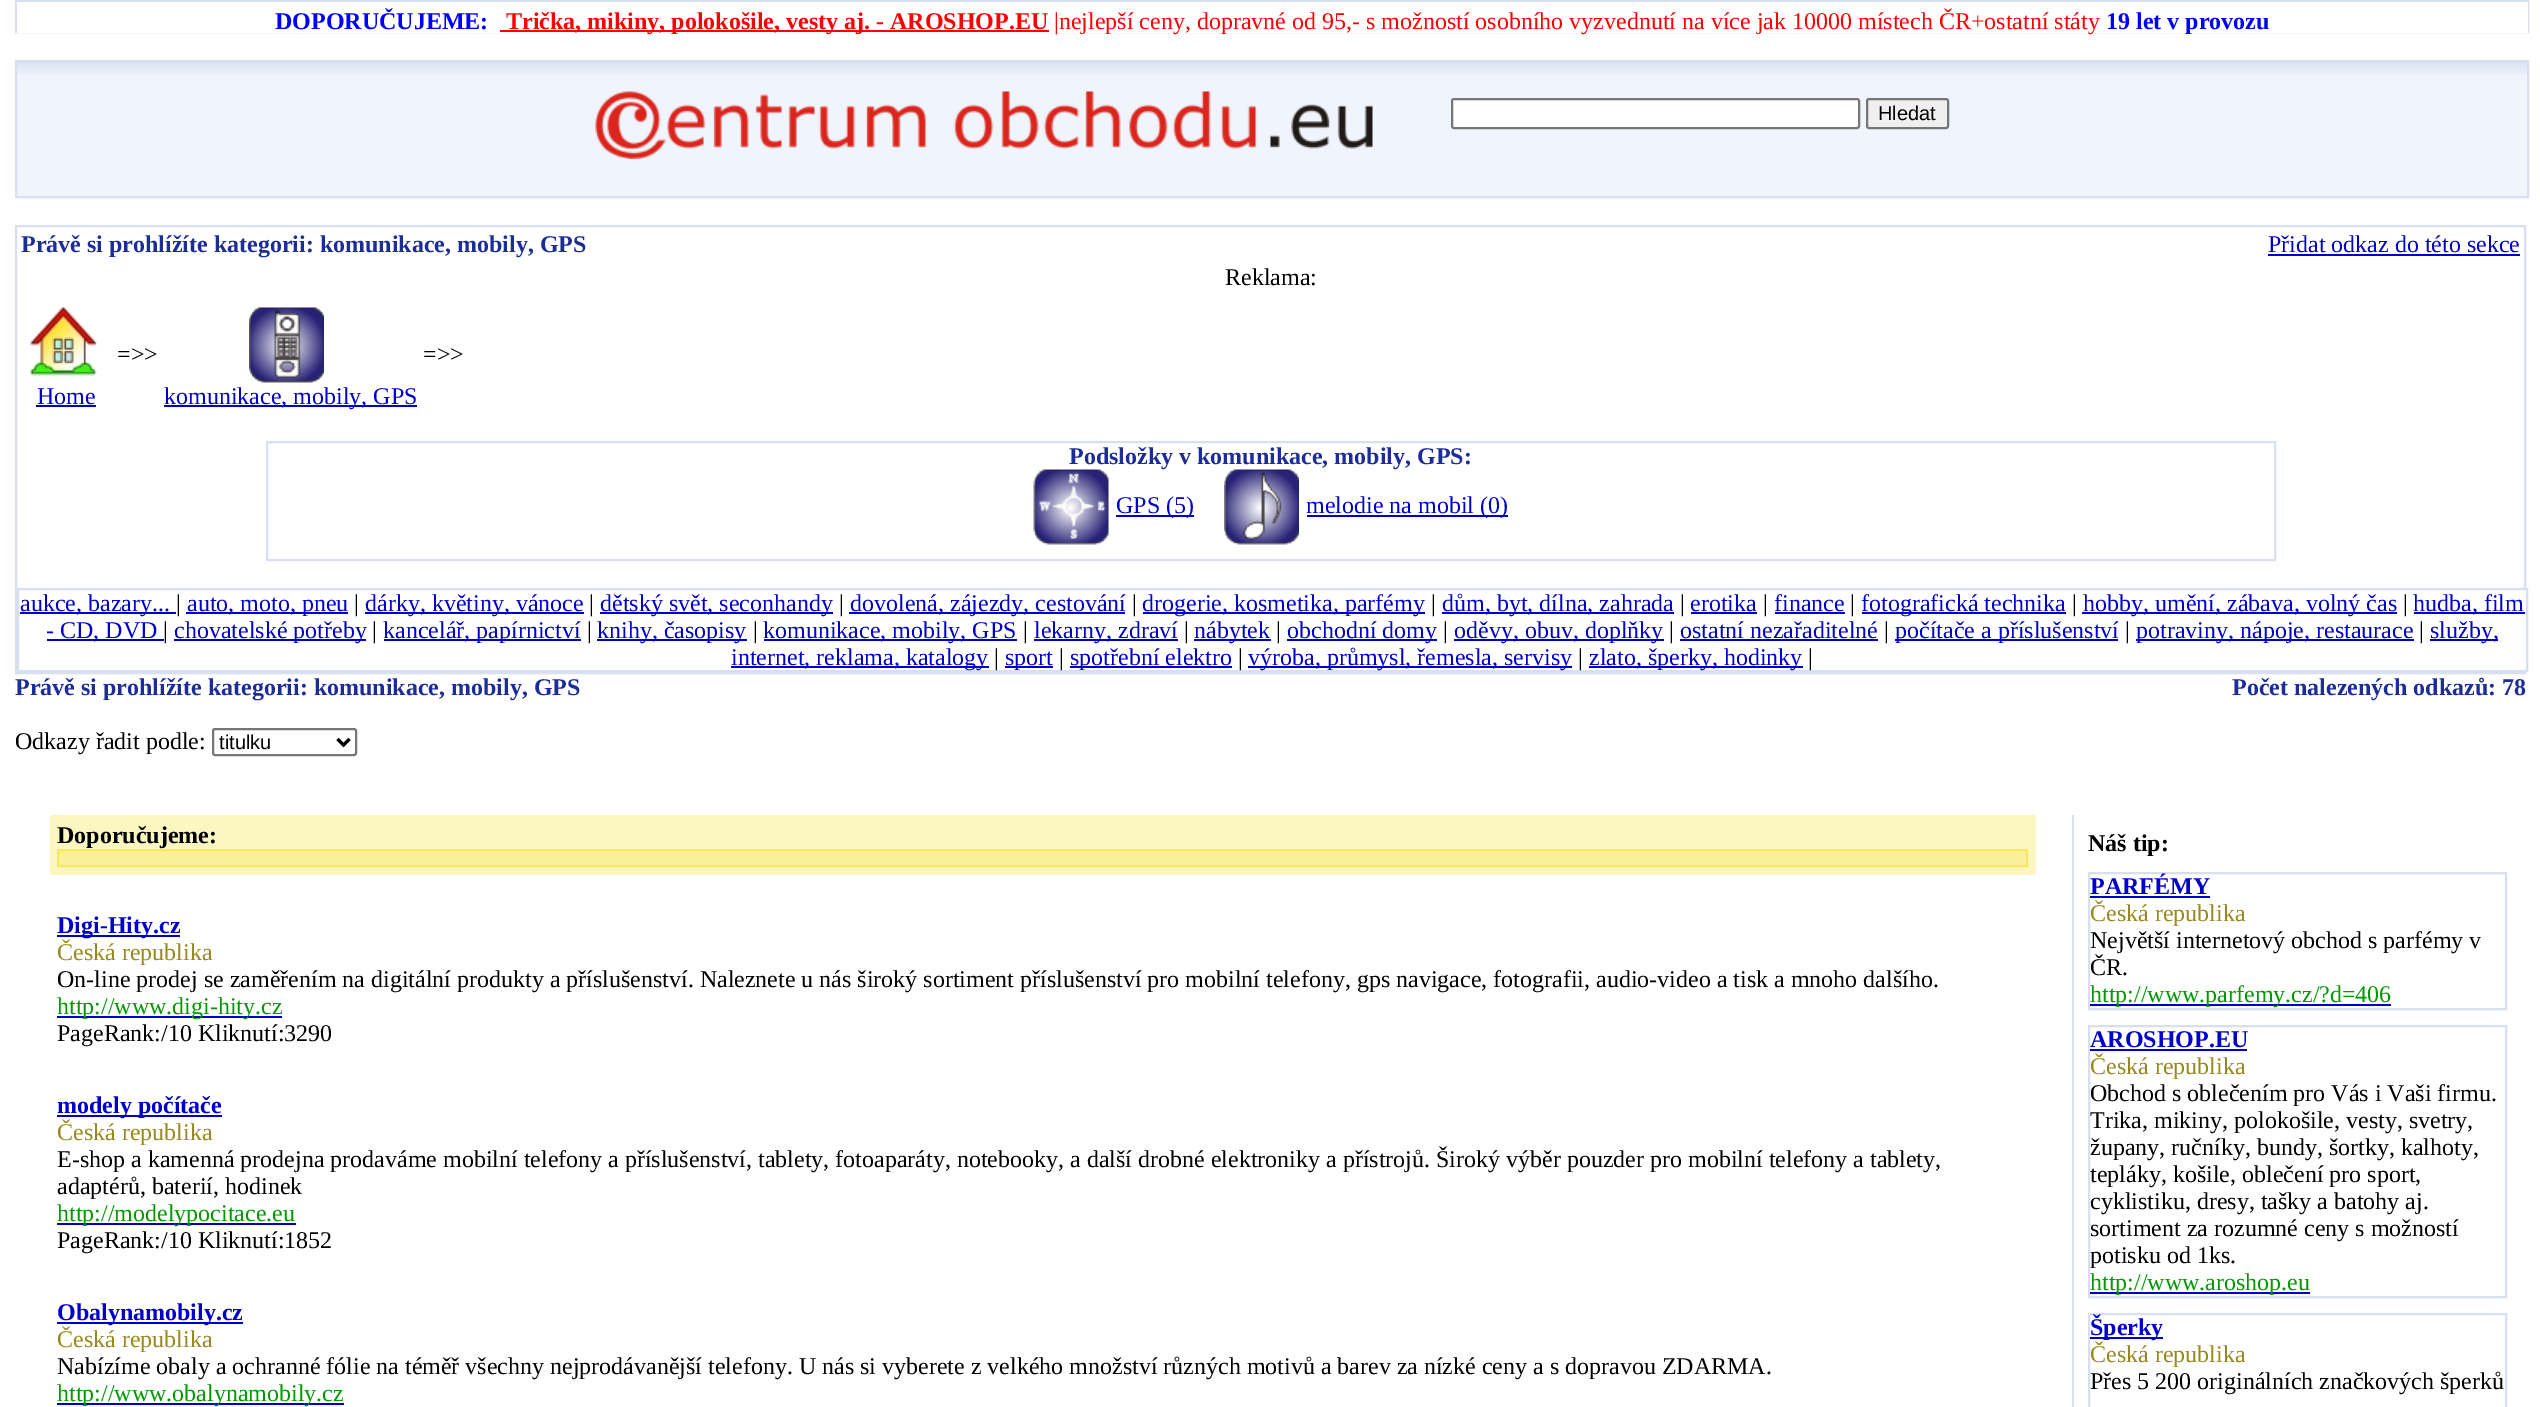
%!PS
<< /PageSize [2540 1407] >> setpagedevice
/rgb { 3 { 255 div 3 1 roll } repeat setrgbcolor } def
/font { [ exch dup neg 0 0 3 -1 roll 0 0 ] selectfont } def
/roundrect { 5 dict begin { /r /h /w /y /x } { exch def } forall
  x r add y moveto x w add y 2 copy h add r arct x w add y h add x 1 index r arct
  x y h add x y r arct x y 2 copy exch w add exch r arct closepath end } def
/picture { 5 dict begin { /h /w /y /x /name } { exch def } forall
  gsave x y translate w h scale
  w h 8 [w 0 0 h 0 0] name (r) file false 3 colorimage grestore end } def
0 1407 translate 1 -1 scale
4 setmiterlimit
255 255 255 rgb
0 0 2540 1407 rectfill
215 223 240 rgb
2 setlinewidth
16 1 2512 31 rectstroke
[
  [17 2 2511 31 255 255 255]
  [500 30 549 2 255 0 0]
  [17 75 2510 121 240 245 253]
] { aload pop rgb rectfill } forall
(img/1.rgb) 17 62 2510 13 picture
215 223 240 rgb
16 61 2512 136 rectstroke
(img/2.rgb) 595 91 778 68 picture
255 255 255 rgb
1452 99 407 29 2 roundrect gsave fill grestore
118 118 118 rgb
stroke
239 239 239 rgb
1867 99 81 29 2 roundrect gsave fill grestore
118 118 118 rgb
stroke
215 223 240 rgb
16 226 2509 447 rectstroke
0 0 204 rgb
2268 254 252 2 rectfill
(img/3.rgb) 29 307 68 70 picture
36 405 60 2 rectfill
(img/4.rgb) 249 307 75 76 picture
164 405 253 2 rectfill
215 223 240 rgb
267 442 2008 118 rectstroke
[
  [1116 515 78 2 0 0 204]
  [1307 515 201 2 0 0 204]
  [2524 590 2 80 255 255 255]
] { aload pop rgb rectfill } forall
215 223 240 rgb
18 589 2509 82 rectstroke
[
  [20 612 156 2 0 0 204]
  [186 612 162 2 0 0 204]
  [365 612 219 2 0 0 204]
  [600 612 233 2 0 0 204]
  [849 612 276 2 0 0 204]
  [1143 612 282 2 0 0 204]
  [1442 612 232 2 0 0 204]
  [1691 612 66 2 0 0 204]
  [1775 612 70 2 0 0 204]
  [1862 612 204 2 0 0 204]
  [2082 612 315 2 0 0 204]
  [2414 612 111 2 0 0 204]
  [47 639 117 2 0 0 204]
  [174 639 192 2 0 0 204]
  [384 639 197 2 0 0 204]
  [597 639 150 2 0 0 204]
  [764 639 253 2 0 0 204]
  [1034 639 144 2 0 0 204]
  [1194 639 77 2 0 0 204]
  [1287 639 150 2 0 0 204]
  [1454 639 210 2 0 0 204]
  [1680 639 198 2 0 0 204]
  [1895 639 223 2 0 0 204]
  [2136 639 278 2 0 0 204]
  [2430 639 68 2 0 0 204]
  [731 666 258 2 0 0 204]
  [1005 666 48 2 0 0 204]
  [1070 666 162 2 0 0 204]
  [1248 666 324 2 0 0 204]
  [1589 666 214 2 0 0 204]
] { aload pop rgb rectfill } forall
118 118 118 rgb
213 729 143 26 2 roundrect stroke
0 0 0 rgb
3 setlinewidth
337.5 739 moveto 343.5 745 lineto 349.5 739 lineto stroke
252 246 192 rgb
50 815 1986 60 rectfill
250 240 154 rgb
58 850 moveto 2027 850 lineto 2027 866 lineto 58 866 lineto closepath gsave fill grestore
248 233 101 rgb
2 setlinewidth
stroke
[
  [57 935 123 2 0 0 204]
  [57 1016 225 2 0 0 204]
  [57 1115 165 2 0 0 204]
  [57 1223 239 2 0 0 204]
  [57 1322 186 2 0 0 204]
  [57 1403 287 2 0 0 204]
  [2072 815 2 592 215 223 240]
] { aload pop rgb rectfill } forall
2089 873 417 136 rectstroke
0 0 204 rgb
2090 896 120 2 rectfill
2090 1004 301 2 rectfill
215 223 240 rgb
2089 1026 417 271 rectstroke
0 0 204 rgb
2090 1049 157 2 rectfill
2090 1292 220 2 rectfill
215 223 240 rgb
2089 1314 417 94 rectstroke
0 0 204 rgb
2090 1337 73 2 rectfill
/LiberationSerif-Bold 24 font
0 0 255 rgb
275 29 moveto (DOPORUČUJEME:) show
255 0 0 rgb
506 29 moveto (Trička, mikiny, polokošile, vesty aj. - AROSHOP.EU) show
/LiberationSerif-Regular 24 font
1054 29 moveto (|nejlepší ceny, dopravné od 95,- s možností osobního vyzvednutí na více jak 10000 místech ČR+ostatní státy) show
/LiberationSerif-Bold 24 font
0 0 255 rgb
2106 29 moveto (19 let v provozu) show
/LiberationSans-Regular 20 font
0 0 0 rgb
1878 120 moveto (Hledat) show
/LiberationSerif-Bold 24 font
28 45 152 rgb
21 252 moveto (Právě si prohlížíte kategorii: komunikace, mobily, GPS) show
/LiberationSerif-Regular 24 font
0 0 204 rgb
2268 252 moveto (Přidat odkaz do této sekce) show
0 0 0 rgb
[
  [(Reklama:) 1225 285]
  [(=>>) 117 362]
  [(=>>) 423 362]
] { aload pop moveto show } forall
0 0 204 rgb
37 404 moveto (Home) show
164 404 moveto (komunikace, mobily, GPS) show
/LiberationSerif-Bold 24 font
28 45 152 rgb
1069 464 moveto (Podsložky v komunikace, mobily, GPS:) show
(img/5.rgb) 1033 469 76 76 picture
/LiberationSerif-Regular 24 font
0 0 204 rgb
1116 513 moveto (GPS \(5\)) show
(img/6.rgb) 1224 469 75 76 picture
1306 513 moveto (melodie na mobil \(0\)) show
20 611 moveto (aukce, bazary...) show
0 0 0 rgb
176 611 moveto (|) show
0 0 204 rgb
187 611 moveto (auto, moto, pneu) show
0 0 0 rgb
354 611 moveto (|) show
0 0 204 rgb
365 611 moveto (dárky, květiny, vánoce) show
0 0 0 rgb
589 611 moveto (|) show
0 0 204 rgb
600 611 moveto (dětský svět, seconhandy) show
0 0 0 rgb
839 611 moveto (|) show
0 0 204 rgb
850 611 moveto (dovolená, zájezdy, cestování) show
0 0 0 rgb
1132 611 moveto (|) show
0 0 204 rgb
1142 611 moveto (drogerie, kosmetika, parfémy) show
0 0 0 rgb
1431 611 moveto (|) show
0 0 204 rgb
1442 611 moveto (dům, byt, dílna, zahrada) show
0 0 0 rgb
1680 611 moveto (|) show
0 0 204 rgb
1690 611 moveto (erotika) show
0 0 0 rgb
1763 611 moveto (|) show
0 0 204 rgb
1774 611 moveto (finance) show
0 0 0 rgb
1850 611 moveto (|) show
0 0 204 rgb
1861 611 moveto (fotografická technika) show
0 0 0 rgb
2072 611 moveto (|) show
0 0 204 rgb
2083 611 moveto (hobby, umění, zábava, volný čas) show
0 0 0 rgb
2403 611 moveto (|) show
0 0 204 rgb
2413 611 moveto (hudba, film) show
46 638 moveto (- CD, DVD) show
0 0 0 rgb
163 638 moveto (|) show
0 0 204 rgb
174 638 moveto (chovatelské potřeby) show
0 0 0 rgb
372 638 moveto (|) show
0 0 204 rgb
383 638 moveto (kancelář, papírnictví) show
0 0 0 rgb
587 638 moveto (|) show
0 0 204 rgb
597 638 moveto (knihy, časopisy) show
0 0 0 rgb
753 638 moveto (|) show
0 0 204 rgb
763 638 moveto (komunikace, mobily, GPS) show
0 0 0 rgb
1023 638 moveto (|) show
0 0 204 rgb
1034 638 moveto (lekarny, zdraví) show
0 0 0 rgb
1184 638 moveto (|) show
0 0 204 rgb
1194 638 moveto (nábytek) show
0 0 0 rgb
1276 638 moveto (|) show
0 0 204 rgb
1287 638 moveto (obchodní domy) show
0 0 0 rgb
1443 638 moveto (|) show
0 0 204 rgb
1454 638 moveto (oděvy, obuv, doplňky) show
0 0 0 rgb
1669 638 moveto (|) show
0 0 204 rgb
1680 638 moveto (ostatní nezařaditelné) show
0 0 0 rgb
1884 638 moveto (|) show
0 0 204 rgb
1895 638 moveto (počítače a příslušenství) show
0 0 0 rgb
2125 638 moveto (|) show
0 0 204 rgb
2136 638 moveto (potraviny, nápoje, restaurace) show
0 0 0 rgb
2419 638 moveto (|) show
0 0 204 rgb
2430 638 moveto (služby,) show
731 665 moveto (internet, reklama, katalogy) show
0 0 0 rgb
994 665 moveto (|) show
0 0 204 rgb
1005 665 moveto (sport) show
0 0 0 rgb
1059 665 moveto (|) show
0 0 204 rgb
1070 665 moveto (spotřební elektro) show
0 0 0 rgb
1238 665 moveto (|) show
0 0 204 rgb
1248 665 moveto (výroba, průmysl, řemesla, servisy) show
0 0 0 rgb
1578 665 moveto (|) show
0 0 204 rgb
1589 665 moveto (zlato, šperky, hodinky) show
0 0 0 rgb
1808 665 moveto (|) show
/LiberationSerif-Bold 24 font
28 45 152 rgb
15 695 moveto (Právě si prohlížíte kategorii: komunikace, mobily, GPS) show
2232 695 moveto (Počet nalezených odkazů: 78) show
/LiberationSerif-Regular 24 font
0 0 0 rgb
15 749 moveto (Odkazy řadit podle:) show
/LiberationSans-Regular 20 font
219 749 moveto (titulku) show
/LiberationSerif-Bold 24 font
57 843 moveto (Doporučujeme:) show
0 0 204 rgb
57 933 moveto (Digi-Hity.cz) show
/LiberationSerif-Regular 24 font
152 136 29 rgb
57 960 moveto (Česká republika) show
0 0 0 rgb
57 987 moveto (On-line prodej se zaměřením na digitální produkty a příslušenství. Naleznete u nás široký sortiment příslušenství pro mobilní telefony, gps navigace, fotografii, audio-video a tisk a mnoho dalšího.) show
0 153 0 rgb
57 1014 moveto (http://www.digi-hity.cz) show
0 0 0 rgb
57 1041 moveto (PageRank:/10 Kliknutí:3290) show
/LiberationSerif-Bold 24 font
0 0 204 rgb
57 1113 moveto (modely počítače) show
/LiberationSerif-Regular 24 font
152 136 29 rgb
57 1140 moveto (Česká republika) show
0 0 0 rgb
57 1167 moveto (E-shop a kamenná prodejna prodaváme mobilní telefony a příslušenství, tablety, fotoaparáty, notebooky, a další drobné elektroniky a přístrojů. Široký výběr pouzder pro mobilní telefony a tablety,) show
57 1194 moveto (adaptérů, baterií, hodinek) show
0 153 0 rgb
57 1221 moveto (http://modelypocitace.eu) show
0 0 0 rgb
57 1248 moveto (PageRank:/10 Kliknutí:1852) show
/LiberationSerif-Bold 24 font
0 0 204 rgb
57 1320 moveto (Obalynamobily.cz) show
/LiberationSerif-Regular 24 font
152 136 29 rgb
57 1347 moveto (Česká republika) show
0 0 0 rgb
57 1374 moveto (Nabízíme obaly a ochranné fólie na téměř všechny nejprodávanější telefony. U nás si vyberete z velkého množství různých motivů a barev za nízké ceny a s dopravou ZDARMA.) show
0 153 0 rgb
57 1401 moveto (http://www.obalynamobily.cz) show
/LiberationSerif-Bold 24 font
0 0 0 rgb
2088 851 moveto (Náš tip:) show
0 0 204 rgb
2090 894 moveto (PARFÉMY) show
/LiberationSerif-Regular 24 font
152 136 29 rgb
2090 921 moveto (Česká republika) show
0 0 0 rgb
2090 948 moveto (Největší internetový obchod s parfémy v) show
2090 975 moveto (ČR.) show
0 153 0 rgb
2090 1002 moveto (http://www.parfemy.cz/?d=406) show
/LiberationSerif-Bold 24 font
0 0 204 rgb
2090 1047 moveto (AROSHOP.EU) show
/LiberationSerif-Regular 24 font
152 136 29 rgb
2090 1074 moveto (Česká republika) show
0 0 0 rgb
[
  [(Obchod s oblečením pro Vás i Vaši firmu.) 2090 1101]
  [(Trika, mikiny, polokošile, vesty, svetry,) 2090 1128]
  [(župany, ručníky, bundy, šortky, kalhoty,) 2090 1155]
  [(tepláky, košile, oblečení pro sport,) 2090 1182]
  [(cyklistiku, dresy, tašky a batohy aj.) 2090 1209]
  [(sortiment za rozumné ceny s možností) 2090 1236]
  [(potisku od 1ks.) 2090 1263]
] { aload pop moveto show } forall
0 153 0 rgb
2090 1290 moveto (http://www.aroshop.eu) show
/LiberationSerif-Bold 24 font
0 0 204 rgb
2090 1335 moveto (Šperky) show
/LiberationSerif-Regular 24 font
152 136 29 rgb
2090 1362 moveto (Česká republika) show
0 0 0 rgb
2090 1389 moveto (Přes 5 200 originálních značkových šperků) show
showpage
